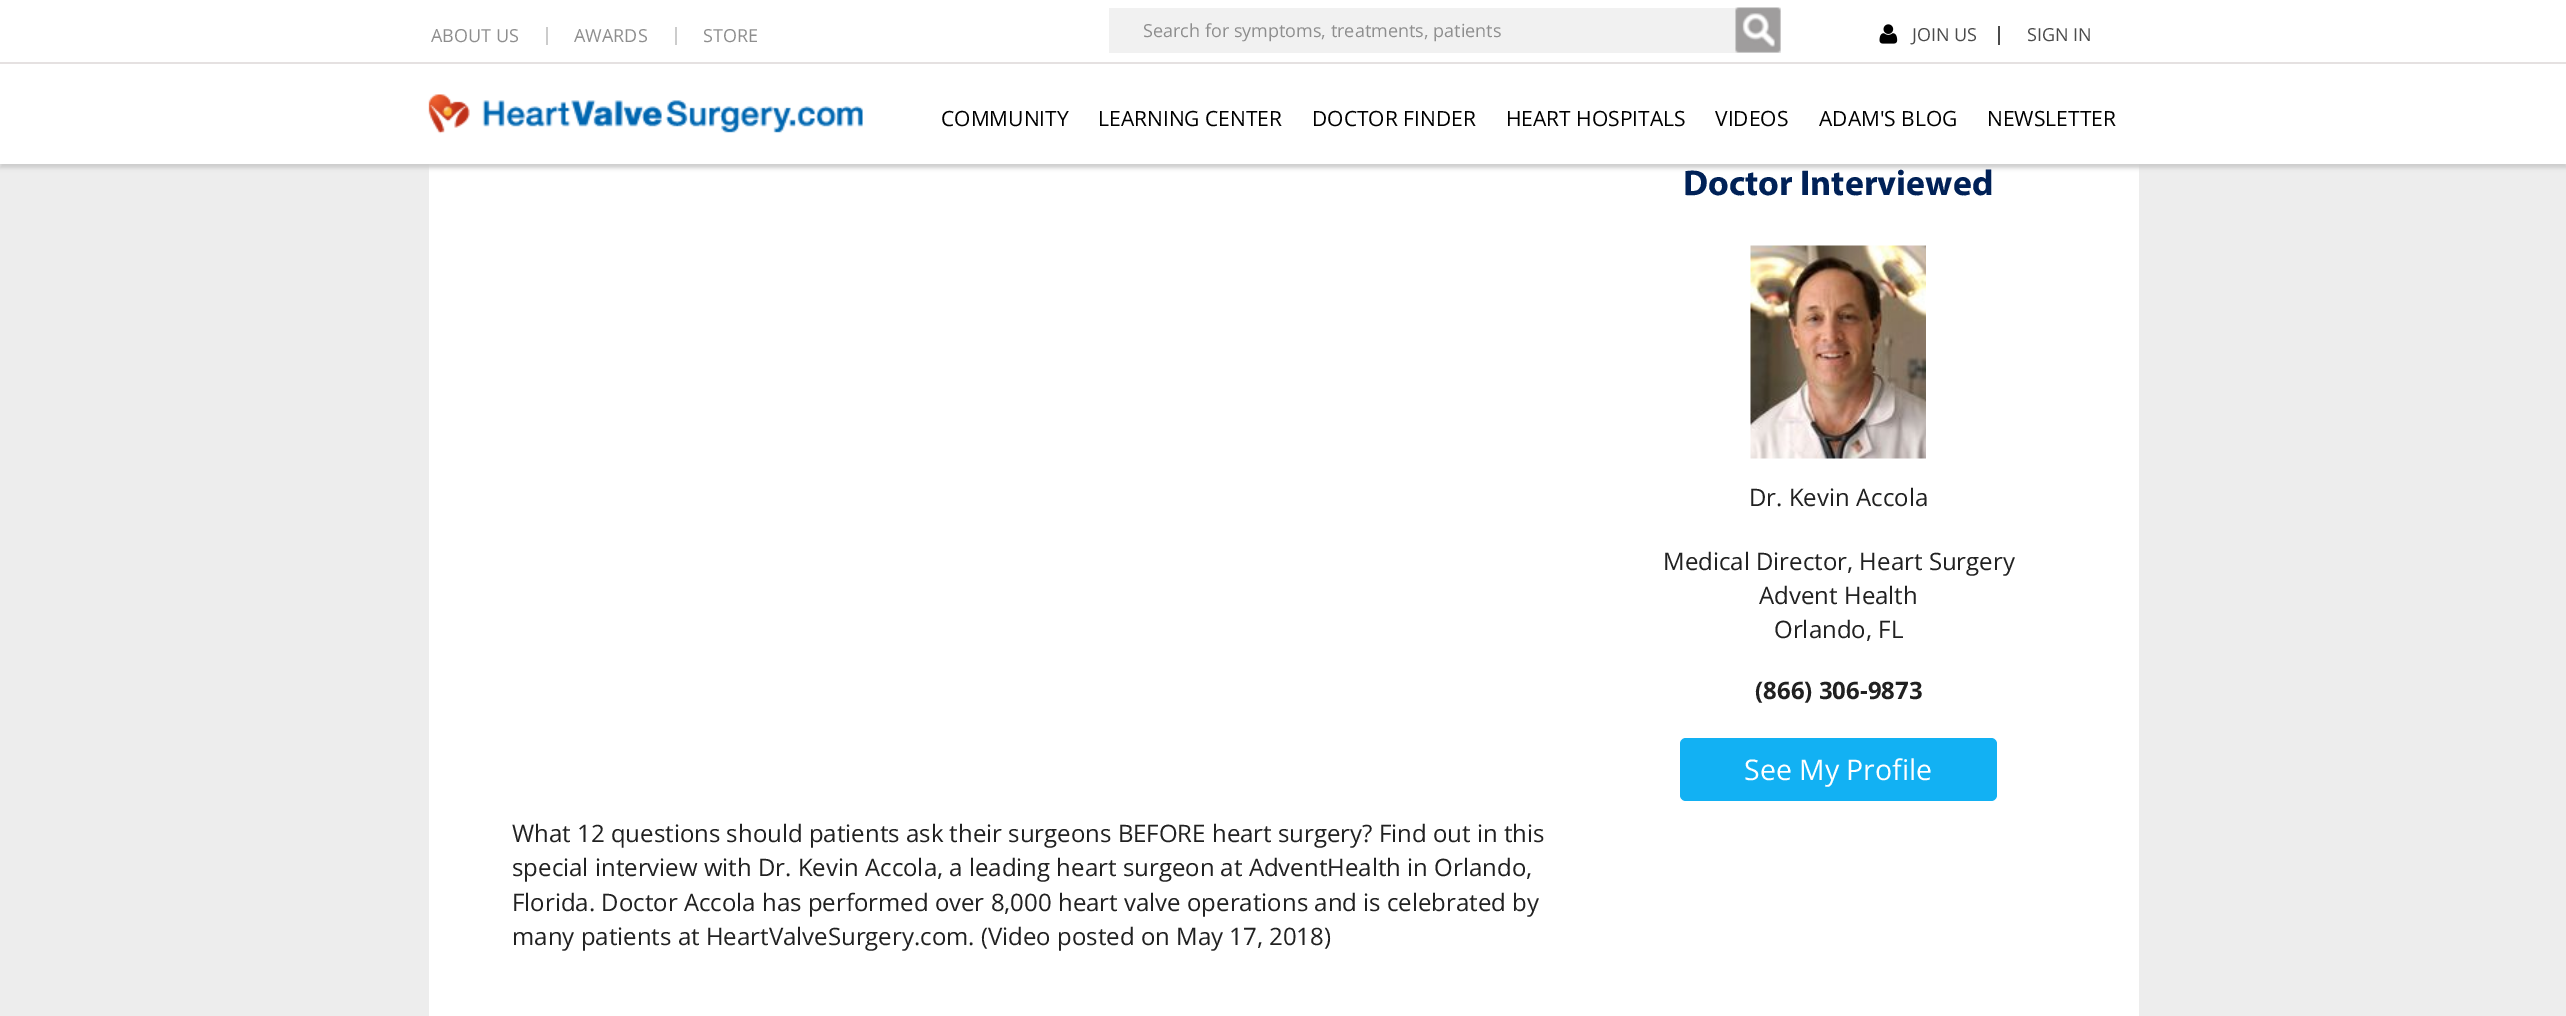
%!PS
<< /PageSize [2566 1016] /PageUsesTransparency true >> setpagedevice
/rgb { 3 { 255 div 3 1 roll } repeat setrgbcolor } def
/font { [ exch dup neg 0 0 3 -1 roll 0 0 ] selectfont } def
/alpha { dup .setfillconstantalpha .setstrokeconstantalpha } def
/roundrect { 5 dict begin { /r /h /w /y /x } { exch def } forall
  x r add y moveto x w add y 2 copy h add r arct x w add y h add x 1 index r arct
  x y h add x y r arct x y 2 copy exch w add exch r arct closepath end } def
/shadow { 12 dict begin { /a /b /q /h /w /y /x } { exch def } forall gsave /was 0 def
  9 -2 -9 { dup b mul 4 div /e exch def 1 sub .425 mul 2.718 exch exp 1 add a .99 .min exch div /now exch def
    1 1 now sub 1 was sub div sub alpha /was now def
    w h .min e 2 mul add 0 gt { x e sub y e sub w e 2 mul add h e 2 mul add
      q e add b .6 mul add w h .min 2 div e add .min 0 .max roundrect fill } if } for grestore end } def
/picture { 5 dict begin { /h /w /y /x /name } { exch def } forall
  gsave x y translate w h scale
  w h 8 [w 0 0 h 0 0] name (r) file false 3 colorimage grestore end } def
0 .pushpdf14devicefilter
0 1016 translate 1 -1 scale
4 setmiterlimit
237 237 237 rgb
0 0 2566 1016 rectfill
255 255 255 rgb
429 164 1710 852 rectfill
204 204 204 rgb
0 5 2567 163 0 2 1 shadow
[
  [0 0 2566 164 255 255 255]
  [546 27 2 18 204 204 204]
  [675 27 2 18 204 204 204]
  [1109 8 627 45 241 241 241]
  [1736 8 45 45 239 239 239]
] { aload pop rgb rectfill } forall
(img/1.rgb) 1735 7 46 46 picture
75 75 75 rgb
1998 26 2 19 rectfill
(img/2.rgb) 1879 24 19 20 picture
229 225 225 rgb
0 62 2566 2 rectfill
(img/3.rgb) 428 94 435 40 picture
(img/4.rgb) 1750 245 176 214 picture
18 177 243 rgb
1680 738 317 63 6 roundrect fill
/OpenSans-Regular 18 font
142 142 142 rgb
[
  [(ABOUT US) 431 42]
  [(AWARDS) 574 42]
  [(STORE) 703 42]
  [(Search for symptoms, treatments, patients) 1143 37]
] { aload pop moveto show } forall
75 75 75 rgb
1912 41 moveto (JOIN US) show
2027 41 moveto (SIGN IN) show
/OpenSans-Regular 21 font
0 0 0 rgb
[
  [(COMMUNITY) 941 126]
  [(LEARNING CENTER) 1098 126]
  [(DOCTOR FINDER) 1312 126]
  [(HEART HOSPITALS) 1506 126]
  [(VIDEOS) 1715 126]
  [(ADAM'S BLOG) 1819 126]
  [(NEWSLETTER) 1987 126]
] { aload pop moveto show } forall
/Myriad-Bold 36 font
0 33 87 rgb
1683 195 moveto (Doctor Interviewed) show
/OpenSans-Regular 24 font
33 33 33 rgb
[
  [(Dr. Kevin Accola) 1749 506]
  [(Medical Director, Heart Surgery) 1663 570]
  [(Advent Health) 1759 604]
  [(Orlando, FL) 1774 638]
] { aload pop moveto show } forall
/OpenSans-Bold 24 font
1755 699 moveto (\(866\) 306-9873) show
/OpenSans-Regular 28.5 font
255 255 255 rgb
1744 780 moveto (See My Profile) show
/OpenSans-Regular 24 font
33 33 33 rgb
[
  [(What 12 questions should patients ask their surgeons BEFORE heart surgery? Find out in this) 512 842]
  [(special interview with Dr. Kevin Accola, a leading heart surgeon at AdventHealth in Orlando,) 512 876]
  [(Florida. Doctor Accola has performed over 8,000 heart valve operations and is celebrated by) 512 911]
  [(many patients at HeartValveSurgery.com. \(Video posted on May 17, 2018\)) 512 945]
] { aload pop moveto show } forall
.poppdf14devicefilter showpage
